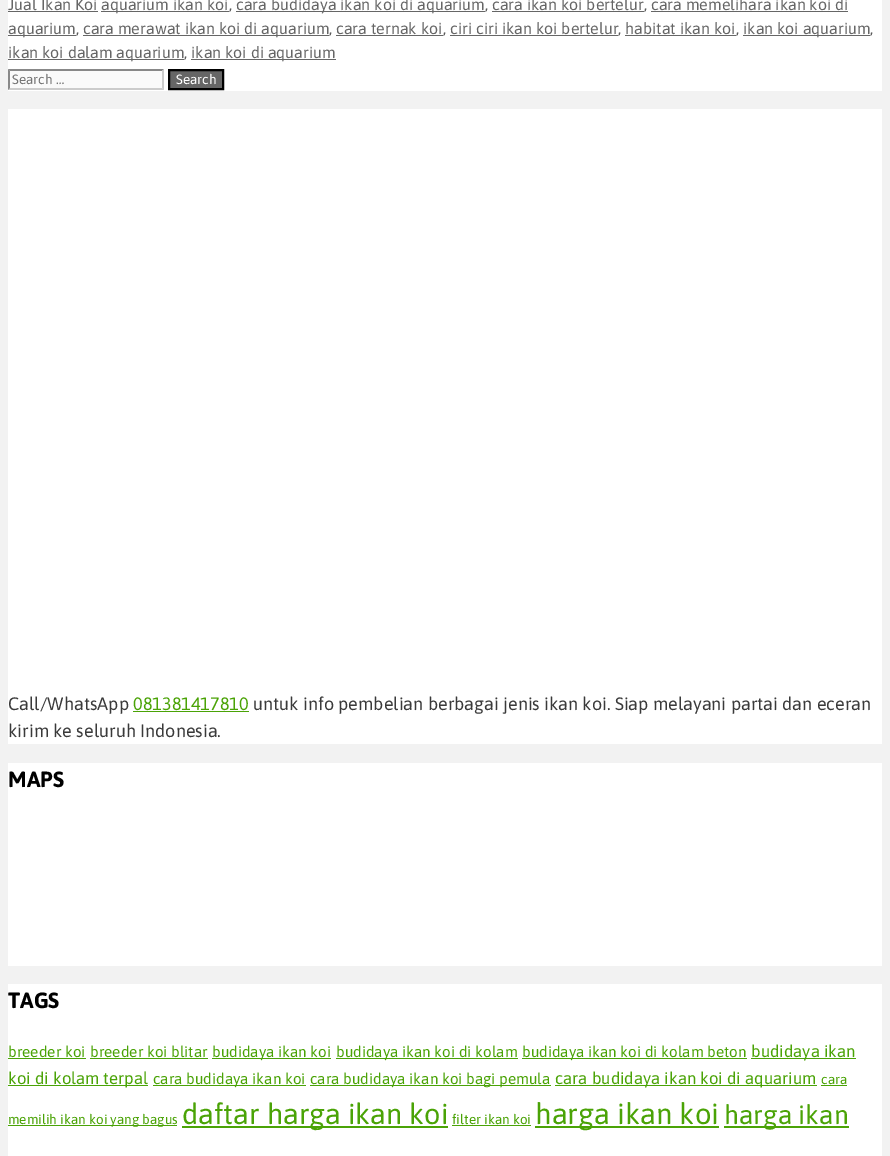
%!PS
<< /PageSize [890 1156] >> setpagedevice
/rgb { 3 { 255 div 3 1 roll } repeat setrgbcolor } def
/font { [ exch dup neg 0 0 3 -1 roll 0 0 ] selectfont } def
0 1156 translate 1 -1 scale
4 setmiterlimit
242 242 242 rgb
0 0 890 1156 rectfill
[
  [8 0 874 91 255 255 255]
  [8 11 90 1 102 102 102]
  [101 11 128 1 102 102 102]
  [236 11 249 1 102 102 102]
  [492 11 152 1 102 102 102]
  [651 11 197 1 102 102 102]
  [8 35 68 1 102 102 102]
  [83 35 246 1 102 102 102]
  [336 35 107 1 102 102 102]
  [450 35 168 1 102 102 102]
  [625 35 111 1 102 102 102]
  [743 35 127 1 102 102 102]
  [8 59 176 1 102 102 102]
  [191 59 145 1 102 102 102]
  [8 69 156 21 250 250 250]
] { aload pop rgb rectfill } forall
136 136 136 rgb
8 69 moveto 164 69 lineto 162 71 lineto 10 71 lineto closepath fill
204 204 204 rgb
164 69 moveto 164 90 lineto 162 88 lineto 162 71 lineto closepath fill
164 90 moveto 8 90 lineto 10 88 lineto 162 88 lineto closepath fill
136 136 136 rgb
8 90 moveto 8 69 lineto 10 71 lineto 10 88 lineto closepath fill
102 102 102 rgb
169 70 moveto 223 70 lineto 223 89 lineto 169 89 lineto closepath gsave fill grestore
0 0 0 rgb
2 setlinewidth
stroke
[
  [8 109 874 635 255 255 255]
  [133 711 116 1 74 163 6]
  [8 763 874 203 255 255 255]
  [8 984 874 172 255 255 255]
  [8 1058 78 1 74 163 6]
  [90 1058 118 1 74 163 6]
  [212 1058 119 1 74 163 6]
  [336 1058 182 1 74 163 6]
  [522 1058 225 1 74 163 6]
  [751 1058 105 1 74 163 6]
  [8 1085 140 1 74 163 6]
  [153 1085 153 1 74 163 6]
  [310 1085 241 1 74 163 6]
  [555 1085 262 1 74 163 6]
  [821 1085 26 1 74 163 6]
  [8 1125 169 1 74 163 6]
  [182 1126 266 2 74 163 6]
  [452 1125 79 1 74 163 6]
  [535 1126 184 2 74 163 6]
  [724 1126 125 2 74 163 6]
] { aload pop rgb rectfill } forall
/Asap-Regular 16 font
102 102 102 rgb
8 10 moveto (Jual Ikan Koi) show
101 10 moveto (aquarium ikan koi) show
89 89 89 rgb
229 10 moveto (,) show
102 102 102 rgb
236 10 moveto (cara budidaya ikan koi di aquarium) show
89 89 89 rgb
485 10 moveto (,) show
102 102 102 rgb
492 10 moveto (cara ikan koi bertelur) show
89 89 89 rgb
644 10 moveto (,) show
102 102 102 rgb
651 10 moveto (cara memelihara ikan koi di) show
8 34 moveto (aquarium) show
89 89 89 rgb
76 34 moveto (,) show
102 102 102 rgb
83 34 moveto (cara merawat ikan koi di aquarium) show
89 89 89 rgb
329 34 moveto (,) show
102 102 102 rgb
336 34 moveto (cara ternak koi) show
89 89 89 rgb
443 34 moveto (,) show
102 102 102 rgb
450 34 moveto (ciri ciri ikan koi bertelur) show
89 89 89 rgb
618 34 moveto (,) show
102 102 102 rgb
625 34 moveto (habitat ikan koi) show
89 89 89 rgb
736 34 moveto (,) show
102 102 102 rgb
743 34 moveto (ikan koi aquarium) show
89 89 89 rgb
870 34 moveto (,) show
102 102 102 rgb
8 58 moveto (ikan koi dalam aquarium) show
89 89 89 rgb
184 58 moveto (,) show
102 102 102 rgb
191 58 moveto (ikan koi di aquarium) show
/Asap-Regular 13.5 font
117 117 117 rgb
12 84 moveto (Search …) show
255 255 255 rgb
176 84 moveto (Search) show
/Asap-Regular 18 font
58 58 58 rgb
8 710 moveto (Call/WhatsApp) show
74 163 6 rgb
133 710 moveto (081381417810) show
58 58 58 rgb
253 710 moveto (untuk info pembelian berbagai jenis ikan koi. Siap melayani partai dan eceran) show
8 737 moveto (kirim ke seluruh Indonesia.) show
/Asap-Bold 22 font
0 0 0 rgb
8 787 moveto (MAPS) show
8 1008 moveto (TAGS) show
/Asap-Regular 15.25 font
74 163 6 rgb
[
  [(breeder koi) 8 1057]
  [(breeder koi blitar) 90 1057]
  [(budidaya ikan koi) 212 1057]
  [(budidaya ikan koi di kolam) 336 1057]
  [(budidaya ikan koi di kolam beton) 522 1057]
] { aload pop moveto show } forall
/Asap-Regular 16.8 font
751 1057 moveto (budidaya ikan) show
8 1084 moveto (koi di kolam terpal) show
/Asap-Regular 15.25 font
153 1084 moveto (cara budidaya ikan koi) show
310 1084 moveto (cara budidaya ikan koi bagi pemula) show
/Asap-Regular 16.8 font
555 1084 moveto (cara budidaya ikan koi di aquarium) show
/Asap-Regular 13.5 font
821 1084 moveto (cara) show
8 1124 moveto (memilih ikan koi yang bagus) show
/Asap-Regular 28.9 font
182 1124 moveto (daftar harga ikan koi) show
/Asap-Regular 13.5 font
452 1124 moveto (filter ikan koi) show
/Asap-Regular 29.25 font
535 1124 moveto (harga ikan koi) show
/Asap-Regular 26.5 font
724 1124 moveto (harga ikan) show
showpage
